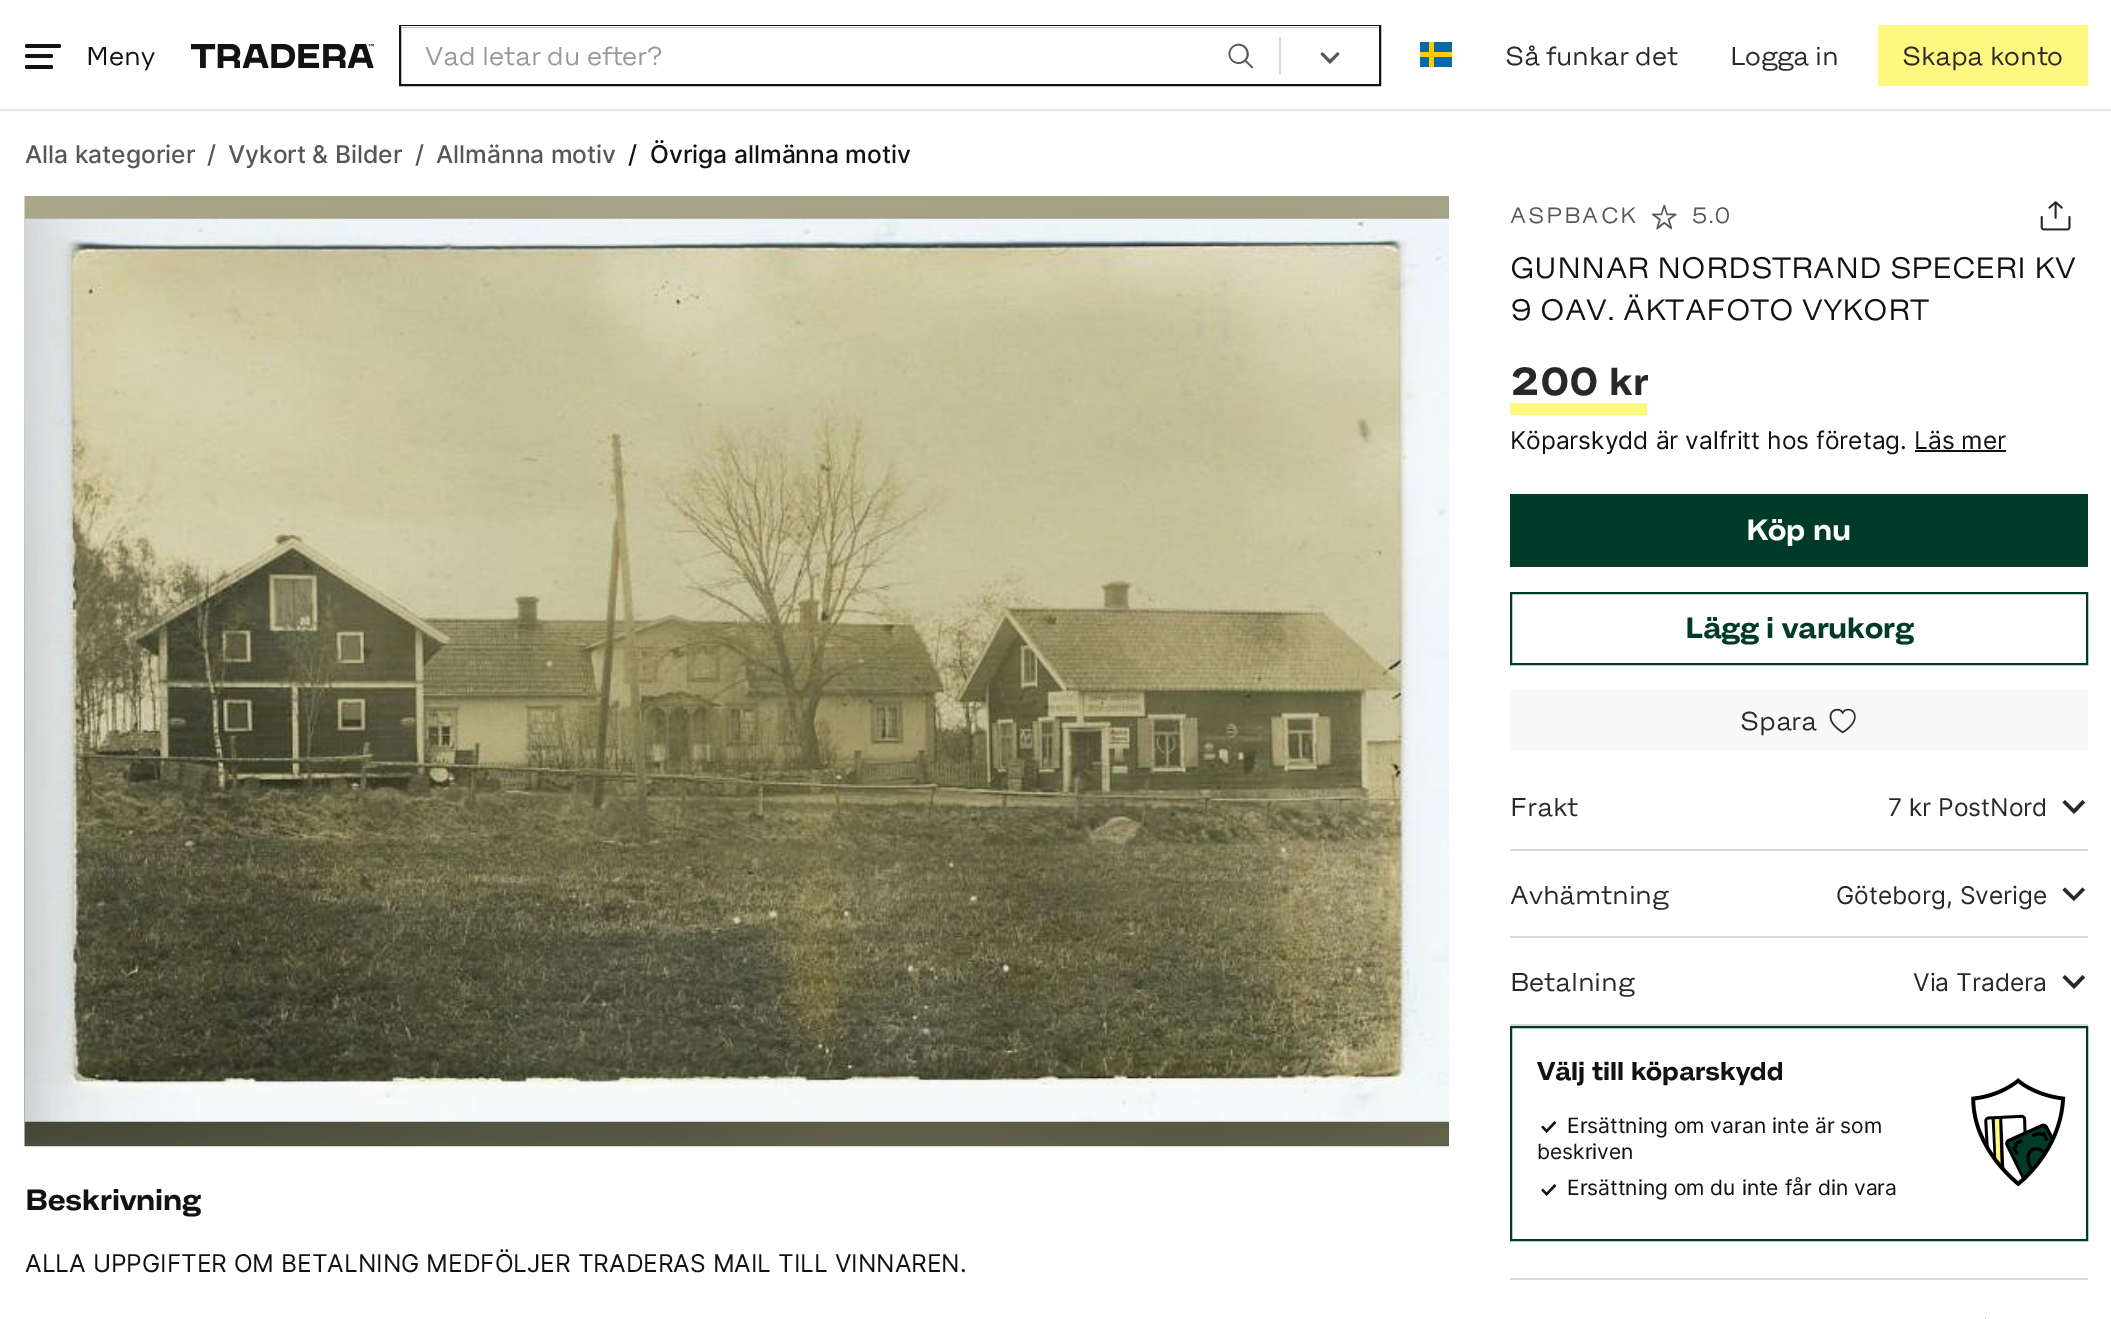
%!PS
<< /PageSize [2111 1319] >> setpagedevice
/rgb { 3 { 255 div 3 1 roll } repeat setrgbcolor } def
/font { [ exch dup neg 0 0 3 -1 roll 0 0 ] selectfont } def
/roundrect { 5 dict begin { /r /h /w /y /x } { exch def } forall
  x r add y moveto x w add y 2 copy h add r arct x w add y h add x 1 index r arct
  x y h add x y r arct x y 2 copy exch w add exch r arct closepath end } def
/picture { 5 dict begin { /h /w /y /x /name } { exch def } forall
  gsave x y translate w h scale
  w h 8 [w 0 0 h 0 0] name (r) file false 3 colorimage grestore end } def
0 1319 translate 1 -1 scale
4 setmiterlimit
255 255 255 rgb
0 0 2111 1319 rectfill
230 230 230 rgb
0 109 2111 2 rectfill
18 18 18 rgb
25 54 28 4 2 roundrect fill
25 44 36 4 2 roundrect fill
25 65 28 4 2 roundrect fill
(img/1.rgb) 191 44 183 24 picture
2 setlinewidth
400 26 980 59 rectstroke
255 255 255 rgb
401 26 978 1 rectfill
216 216 216 rgb
1279 37 2 37 rectfill
87 87 87 rgb
1330 59.5 moveto 1337.5 52 lineto 1339.5 54 lineto 1330 64 lineto 1320.5 54 lineto 1322.5 52 lineto closepath fill
(img/2.rgb) 1228 43 26 26 picture
[
  [1420 42 32 25 6 106 167]
  [1420 52 32 5 254 204 0]
  [1429 42 5 25 254 204 0]
  [1878 25 210 61 254 248 128]
] { aload pop rgb rectfill } forall
(img/3.rgb) 1652 204 25 26 picture
(img/4.rgb) 2040 201 31 30 picture
[
  [1510 403 137 12 254 248 128]
  [1915 450 91 2 18 18 18]
  [1510 494 578 73 0 59 41]
] { aload pop rgb rectfill } forall
1511 593 576 71 rectstroke
248 248 248 rgb
1510 690 578 61 rectfill
(img/5.rgb) 1829 708 27 26 picture
216 216 216 rgb
1510 849 578 2 rectfill
40 40 40 rgb
2074 809 moveto 2082.5 800 lineto 2085 802.5 lineto 2074 814 lineto 2062.5 802.5 lineto 2065 800 lineto closepath fill
216 216 216 rgb
1510 936 578 2 rectfill
40 40 40 rgb
2074 896.5 moveto 2082.5 887.5 lineto 2085 890 lineto 2074 901 lineto 2062.5 890 lineto 2065 887.5 lineto closepath fill
216 216 216 rgb
1510 1278 578 2 rectfill
1510 1024 578 2 rectfill
40 40 40 rgb
2074 984 moveto 2082.5 975 lineto 2085 977.5 lineto 2074 989 lineto 2062.5 977.5 lineto 2065 975 lineto closepath fill
0 59 41 rgb
1511 1027 576 213 rectstroke
(img/6.rgb) 1541 1121 16 12 picture
(img/6.rgb) 1541 1184 16 12 picture
(img/7.rgb) 1971 1078 95 109 picture
18 18 18 rgb
1985.5 1318.5 moveto 1989.5 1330.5 lineto 2001.5 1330.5 lineto 1991.5 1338 lineto 1995.5 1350.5 lineto 1985.5 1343 lineto 1975.5 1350.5 lineto 1979 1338 lineto 1969.5 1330.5 lineto 1981.5 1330.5 lineto closepath eofill
(img/8.rgb) 24 196 1425 951 picture
(img/9.rgb) 24 218 1425 904 picture
/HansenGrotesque-Regular 24.5 font
86 65 moveto (Meny) show
152 152 152 rgb
425 65 moveto (Vad letar du efter?) show
40 40 40 rgb
[
  [(Så funkar det) 1505 65]
  [(Logga in) 1730 65]
  [(Skapa konto) 1902 65]
] { aload pop moveto show } forall
/Inter-Medium 24.5 font
87 87 87 rgb
[
  [(Alla kategorier) 25 163]
  [(/) 207 163]
  [(Vykort & Bilder) 228 163]
  [(/) 415 163]
  [(Allmänna motiv) 436 163]
] { aload pop moveto show } forall
18 18 18 rgb
628 163 moveto (/) show
650 163 moveto (Övriga allmänna motiv) show
/HansenGrotesque-Regular 21 font
87 87 87 rgb
1510 223 moveto 2 0 (ASPBACK) ashow
1691 223 moveto (5.0) show
/HansenGrotesque-Regular 28 font
18 18 18 rgb
1510 278 moveto (GUNNAR NORDSTRAND SPECERI KV) show
1510 320 moveto (9 OAV. ÄKTAFOTO VYKORT) show
/HansenGrotesque-Bold 37 font
40 40 40 rgb
1510 395 moveto (200 kr) show
/Inter-Regular 24.5 font
18 18 18 rgb
1510 449 moveto (Köparskydd är valfritt hos företag. Läs mer) show
/HansenGrotesque-Bold 28 font
255 255 255 rgb
1746 540 moveto (Köp nu) show
0 59 41 rgb
1685 638 moveto (Lägg i varukorg) show
/HansenGrotesque-Regular 24.5 font
40 40 40 rgb
1740 730 moveto (Spara) show
1510 816 moveto (Frakt) show
/Inter-Regular 24.5 font
1888 816 moveto (7 kr PostNord) show
/HansenGrotesque-Regular 24.5 font
1510 904 moveto (Avhämtning) show
/Inter-Regular 24.5 font
1836 904 moveto (Göteborg, Sverige) show
/HansenGrotesque-Regular 24.5 font
1510 991 moveto (Betalning) show
/Inter-Regular 24.5 font
1913 991 moveto (Via Tradera) show
/HansenGrotesque-Bold 24.5 font
18 18 18 rgb
1537 1080 moveto (Välj till köparskydd) show
/Inter-Regular 21 font
[
  [(Ersättning om varan inte är som) 1567 1133]
  [(beskriven) 1537 1159]
  [(Ersättning om du inte får din vara) 1567 1195]
] { aload pop moveto show } forall
/HansenGrotesque-Bold 28 font
25 1210 moveto (Beskrivning) show
/Inter-Regular 24.5 font
25 1272 moveto (ALLA UPPGIFTER OM BETALNING MEDFÖLJER TRADERAS MAIL TILL VINNAREN.) show
showpage
